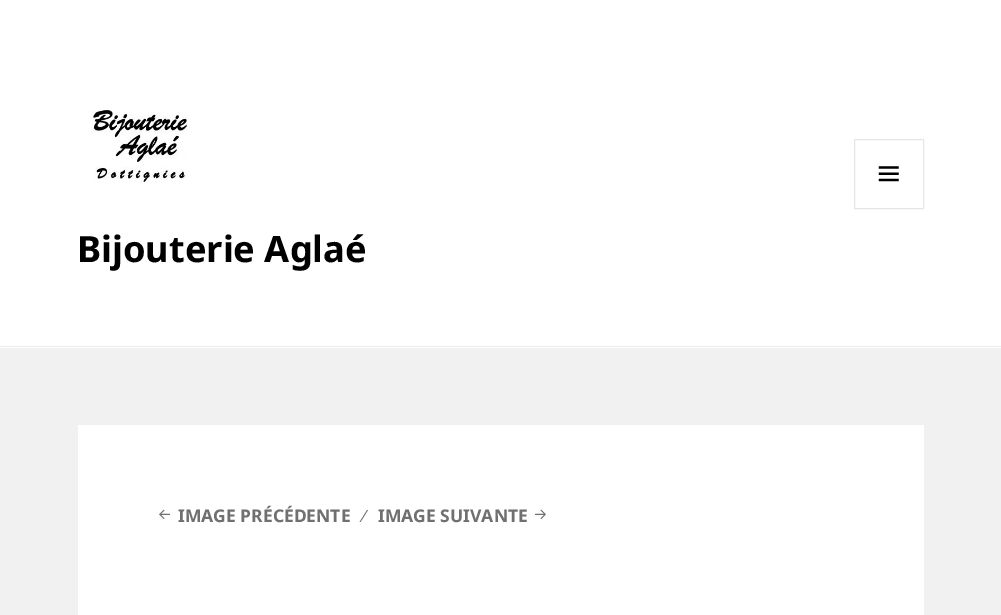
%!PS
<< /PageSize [1001 615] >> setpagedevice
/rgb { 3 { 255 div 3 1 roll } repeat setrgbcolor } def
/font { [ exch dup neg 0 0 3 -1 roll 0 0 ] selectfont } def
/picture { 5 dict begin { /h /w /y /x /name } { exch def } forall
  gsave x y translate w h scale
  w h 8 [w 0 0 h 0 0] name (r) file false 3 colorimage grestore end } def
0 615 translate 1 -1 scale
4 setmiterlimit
241 241 241 rgb
0 0 1001 615 rectfill
255 255 255 rgb
0 0 1001 348 rectfill
235 235 235 rgb
0 346 1001 1 rectfill
(img/1.rgb) 90 107 98 76 picture
230 230 230 rgb
854.5 139.5 69 69 rectstroke
(img/2.rgb) 878 166 21 16 picture
255 255 255 rgb
78 425 846 190 rectfill
(img/3.rgb) 159 509 11 11 picture
(img/4.rgb) 535 509 11 11 picture
/NotoSans-Bold 36.25 font
0 0 0 rgb
77 262 moveto (Bijouterie Aglaé) show
/NotoSans-Bold 17.5 font
112 112 112 rgb
178 522 moveto (IMAGE PRÉCÉDENTE) show
/LiberationSans-Regular 17.5 font
363 522 moveto (∕) show
/NotoSans-Bold 17.5 font
378 522 moveto (IMAGE SUIVANTE) show
showpage
